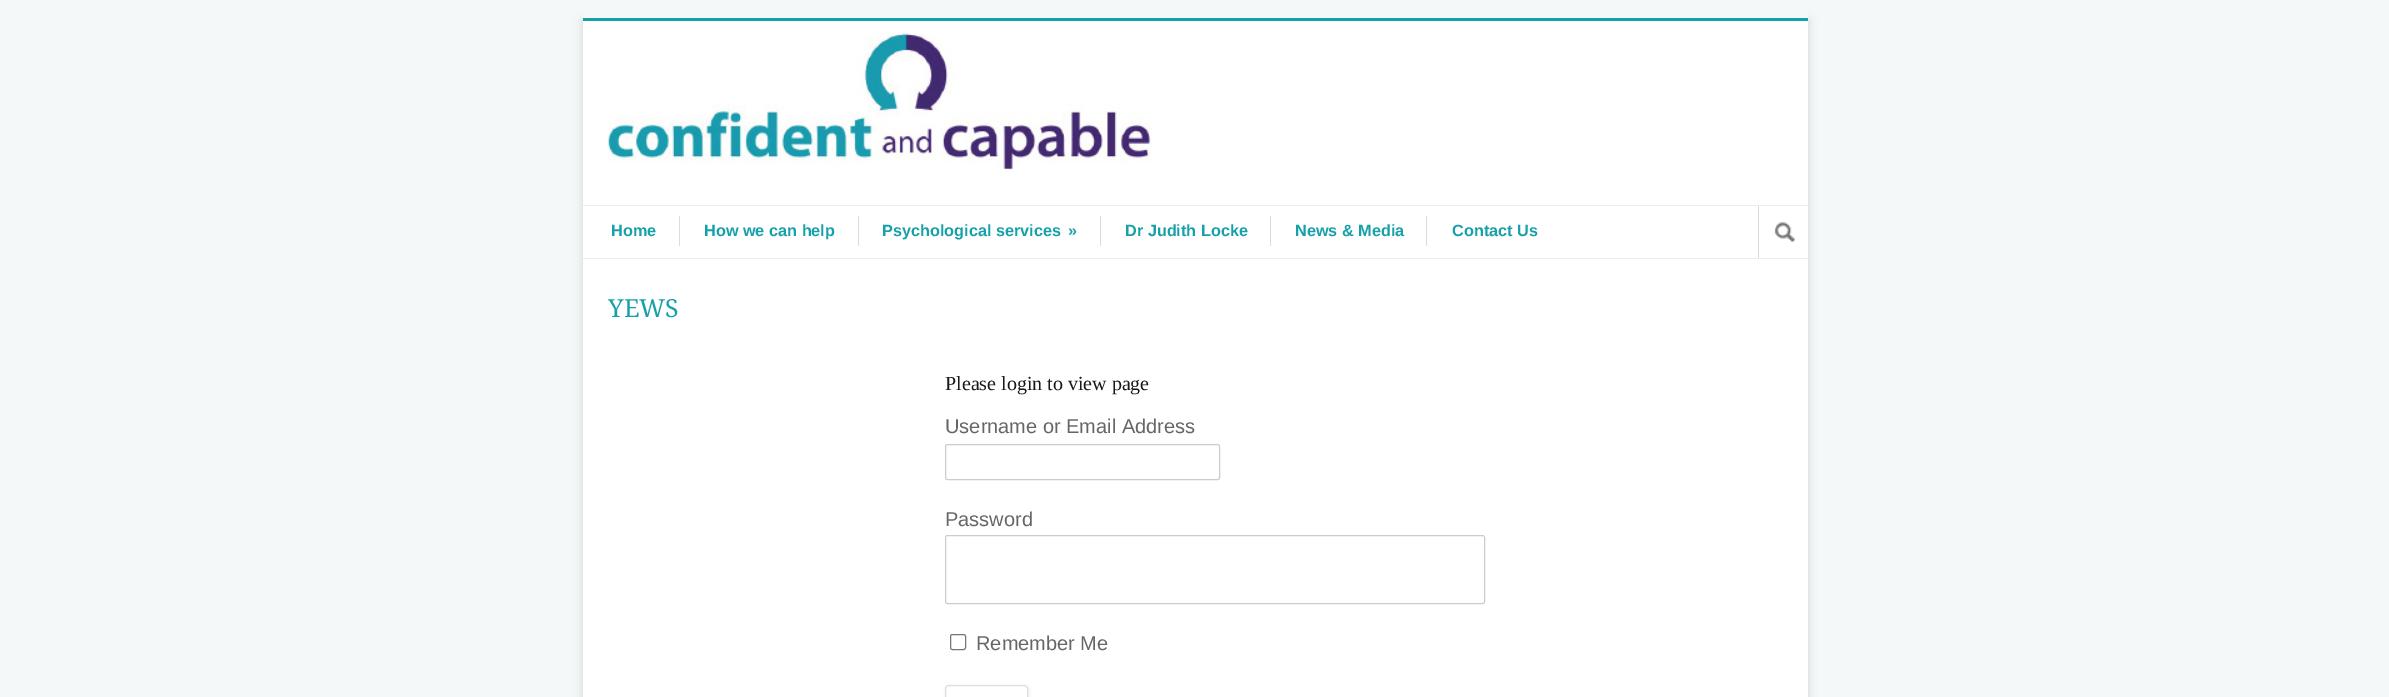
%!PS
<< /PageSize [2389 697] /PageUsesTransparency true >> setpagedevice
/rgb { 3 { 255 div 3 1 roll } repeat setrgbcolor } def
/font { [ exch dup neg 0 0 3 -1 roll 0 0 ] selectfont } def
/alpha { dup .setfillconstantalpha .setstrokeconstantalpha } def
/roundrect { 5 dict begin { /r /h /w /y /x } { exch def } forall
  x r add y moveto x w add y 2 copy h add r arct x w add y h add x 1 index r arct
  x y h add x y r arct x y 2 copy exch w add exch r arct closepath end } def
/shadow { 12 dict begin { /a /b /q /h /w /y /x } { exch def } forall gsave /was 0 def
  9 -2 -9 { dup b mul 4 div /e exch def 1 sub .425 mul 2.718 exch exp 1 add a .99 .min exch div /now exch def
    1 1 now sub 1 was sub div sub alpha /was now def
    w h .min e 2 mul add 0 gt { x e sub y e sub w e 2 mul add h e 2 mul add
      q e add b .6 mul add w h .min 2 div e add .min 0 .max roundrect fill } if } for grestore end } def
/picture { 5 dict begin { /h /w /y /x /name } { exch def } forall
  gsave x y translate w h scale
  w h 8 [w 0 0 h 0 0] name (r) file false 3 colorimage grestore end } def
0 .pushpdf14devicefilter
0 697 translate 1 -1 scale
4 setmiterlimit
244 248 249 rgb
0 0 2389 697 rectfill
209 209 209 rgb
583 20 1225 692 0 5 1 shadow
[
  [583 12 1225 6 244 248 249]
  [583 18 1225 3 22 160 170]
  [583 21 1225 676 255 255 255]
] { aload pop rgb rectfill } forall
(img/1.rgb) 608 32 544 138 picture
[
  [583 205 1225 1 236 236 236]
  [583 258 1225 1 236 236 236]
  [679 216 1 30 219 219 219]
  [858 216 1 30 219 219 219]
  [1100 216 1 30 219 219 219]
  [1270 216 1 30 219 219 219]
  [1426 216 1 30 219 219 219]
  [1758 206 1 52 219 219 219]
] { aload pop rgb rectfill } forall
(img/2.rgb) 1774 221 21 22 picture
204 204 204 rgb
945.5 444.5 274 35 2 roundrect stroke
945.5 535.5 539 68 2 roundrect stroke
118 118 118 rgb
950.5 634.5 15 15 2 roundrect stroke
gsave
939 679 moveto 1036 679 lineto 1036 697 lineto 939 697 lineto closepath 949 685 moveto 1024 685 lineto 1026 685 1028 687 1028 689 curveto 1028 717 lineto 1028 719 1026 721 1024 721 curveto 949 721 lineto 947 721 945 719 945 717 curveto 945 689 lineto 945 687 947 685 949 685 curveto closepath eoclip newpath
236 236 236 rgb
946 686 83 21 4 2 1 shadow
grestore
222 222 222 rgb
945.5 685.5 82 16 3.5 roundrect stroke
/LiberationSans-Bold 16.25 font
22 160 170 rgb
[
  [(Home) 611 236]
  [(How we can help) 704 236]
  [(Psychological services) 882 236]
  [(») 1068 236]
  [(Dr Judith Locke) 1125 236]
  [(News & Media) 1295 236]
  [(Contact Us) 1452 236]
] { aload pop moveto show } forall
/DroidSerif-Regular 25 font
608 317 moveto (YEWS) show
/LiberationSerif-Regular 20 font
24 24 24 rgb
945 390 moveto (Please login to view page) show
/LiberationSans-Regular 20 font
102 102 102 rgb
[
  [(Username or Email Address) 945 433]
  [(Password) 945 526]
  [(Remember Me) 976 650]
] { aload pop moveto show } forall
.poppdf14devicefilter showpage
